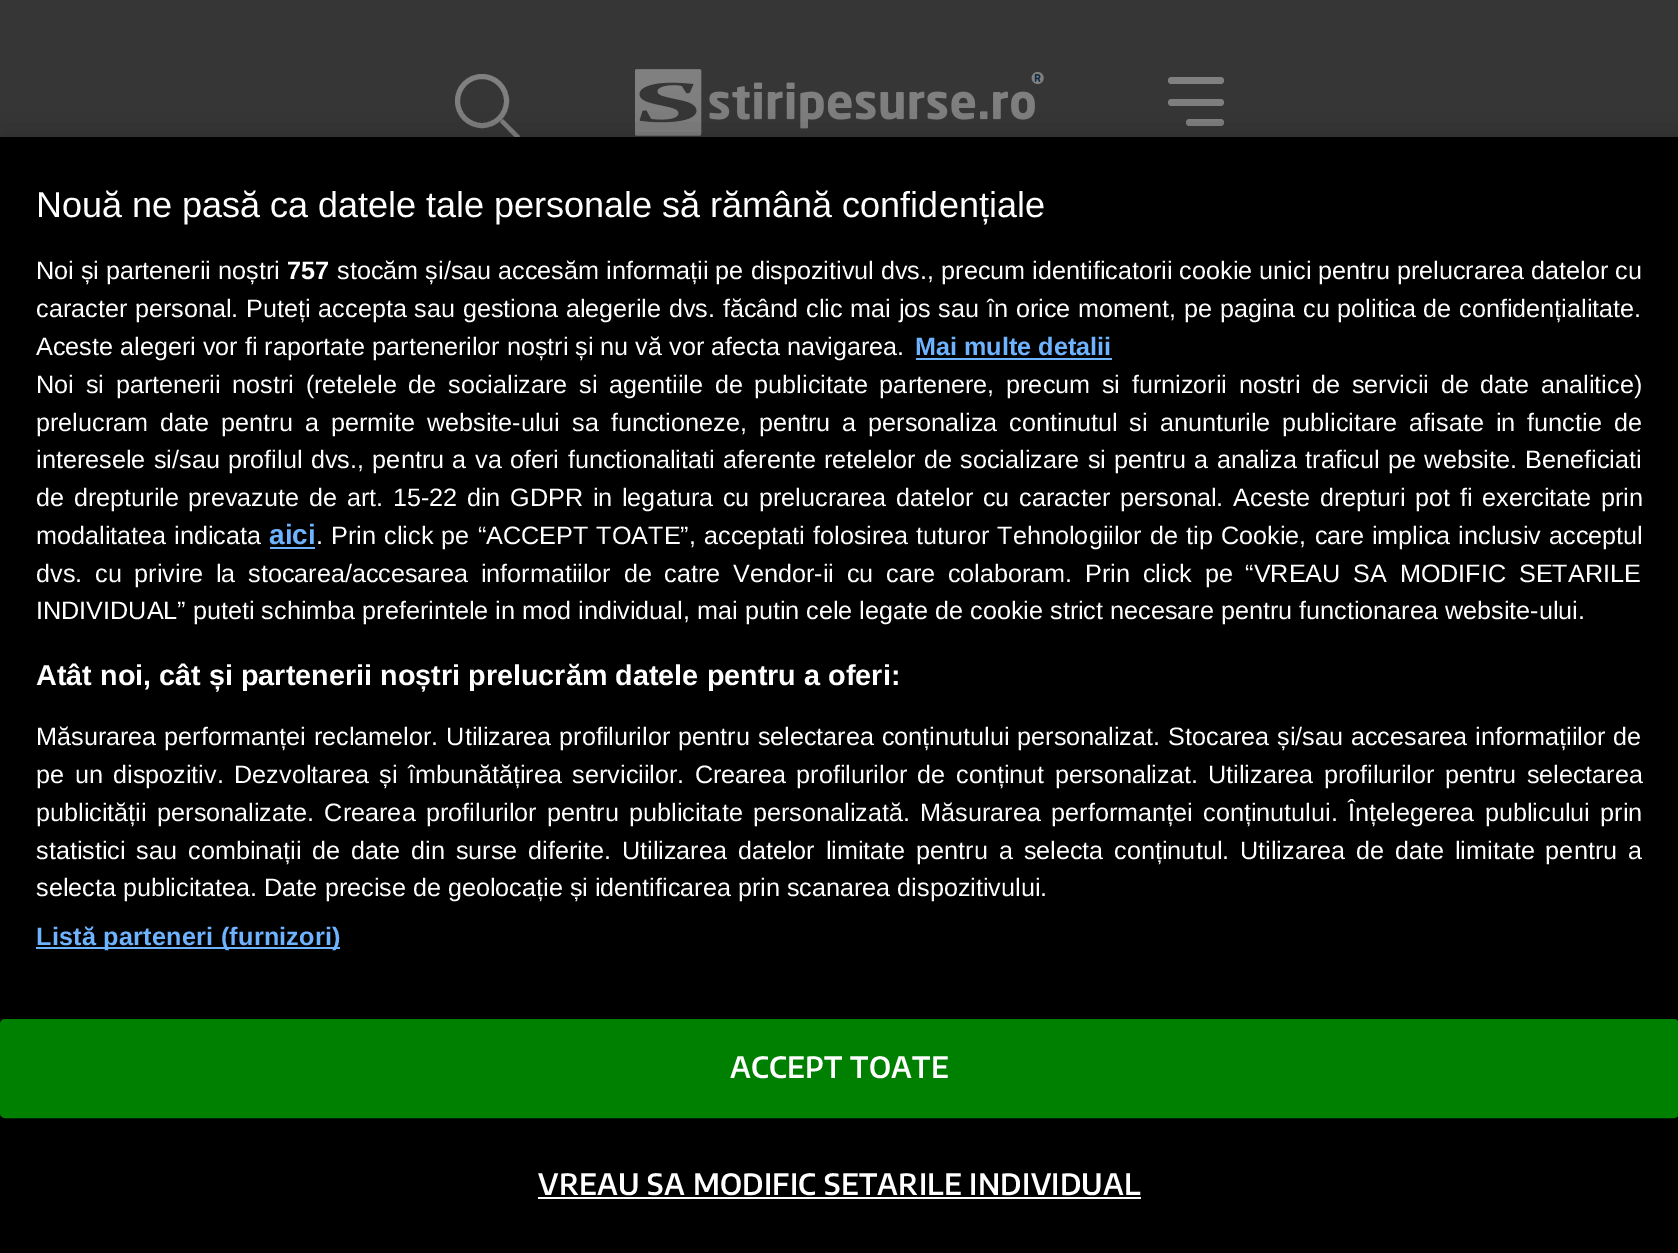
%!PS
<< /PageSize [1678 1253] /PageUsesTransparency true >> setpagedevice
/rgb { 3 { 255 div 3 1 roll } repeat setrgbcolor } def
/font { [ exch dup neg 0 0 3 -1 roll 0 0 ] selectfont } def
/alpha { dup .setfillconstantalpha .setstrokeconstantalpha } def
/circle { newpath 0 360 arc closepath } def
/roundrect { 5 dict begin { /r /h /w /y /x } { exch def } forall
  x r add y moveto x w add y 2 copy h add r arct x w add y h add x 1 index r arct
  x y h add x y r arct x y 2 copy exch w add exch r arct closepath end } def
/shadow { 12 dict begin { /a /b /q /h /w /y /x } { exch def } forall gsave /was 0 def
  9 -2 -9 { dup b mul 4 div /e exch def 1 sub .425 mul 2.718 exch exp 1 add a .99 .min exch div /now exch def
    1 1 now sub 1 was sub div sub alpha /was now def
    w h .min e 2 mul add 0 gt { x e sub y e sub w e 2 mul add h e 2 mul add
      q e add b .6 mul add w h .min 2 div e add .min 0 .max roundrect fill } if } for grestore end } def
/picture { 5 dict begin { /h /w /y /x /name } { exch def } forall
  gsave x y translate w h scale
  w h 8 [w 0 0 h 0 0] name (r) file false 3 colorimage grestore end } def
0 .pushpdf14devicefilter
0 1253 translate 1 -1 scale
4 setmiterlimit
54 54 54 rgb
0 0 1678 1253 rectfill
128 128 128 rgb
5 setlinewidth
482 101 24.5 circle stroke
500 122 moveto 503 119 lineto 520 136 lineto 517 139.5 lineto closepath fill
(img/1.rgb) 635 69 409 67 picture
1168 77 56 7 3.5 roundrect fill
1168 99 56 7 3.5 roundrect fill
1186 119 38 7 3.5 roundrect fill
0 0 0 rgb
0 137 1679 1116 0 20 0.2 shadow
[
  [0 137 1678 1116 0 0 0]
  [916 358 196 2 110 179 255]
  [270 547 45 2 110 179 255]
  [36 947 304 2 110 179 255]
] { aload pop rgb rectfill } forall
0 128 0 rgb
1 1020 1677 97 4 roundrect gsave fill grestore
2 setlinewidth
stroke
255 255 255 rgb
538 1197 603 2 rectfill
/LiberationSans-Regular 36 font
36 217 moveto (Nouă ne pasă ca datele tale personale să rămână confidențiale) show
/LiberationSans-Regular 25.2 font
36 279 moveto (Noi și partenerii noștri) show
/LiberationSans-Bold 25.2 font
287 279 moveto (757) show
/LiberationSans-Regular 25.2 font
337 279 moveto 0.1 0 32 (stocăm și/sau accesăm informații pe dispozitivul dvs., precum identificatorii cookie unici pentru prelucrarea datelor cu) widthshow
36 317 moveto 0.75 0 32 (caracter personal. Puteți accepta sau gestiona alegerile dvs. făcând clic mai jos sau în orice moment, pe pagina cu politica de confidențialitate.) widthshow
36 355 moveto (Aceste alegeri vor fi raportate partenerilor noștri și nu vă vor afecta navigarea.) show
/LiberationSans-Bold 25.2 font
110 179 255 rgb
915 355 moveto (Mai multe detalii) show
/LiberationSans-Regular 25.2 font
255 255 255 rgb
36 393 moveto 4.75 0 32 (Noi si partenerii nostri \(retelele de socializare si agentiile de publicitate partenere, precum si furnizorii nostri de servicii de date analitice\)) widthshow
36 431 moveto 5.1 0 32 (prelucram date pentru a permite website-ului sa functioneze, pentru a personaliza continutul si anunturile publicitare afisate in functie de) widthshow
36 468 moveto 1.5 0 32 (interesele si/sau profilul dvs., pentru a va oferi functionalitati aferente retelelor de socializare si pentru a analiza traficul pe website. Beneficiati) widthshow
36 506 moveto 2.7 0 32 (de drepturile prevazute de art. 15-22 din GDPR in legatura cu prelucrarea datelor cu caracter personal. Aceste drepturi pot fi exercitate prin) widthshow
36 544 moveto 1 0 32 (modalitatea indicata) widthshow
/LiberationSans-Bold 28 font
110 179 255 rgb
269 544 moveto (aici) show
/LiberationSans-Regular 25.2 font
255 255 255 rgb
316 544 moveto 1.2 0 32 (. Prin click pe “ACCEPT TOATE”, acceptati folosirea tuturor Tehnologiilor de tip Cookie, care implica inclusiv acceptul) widthshow
36 582 moveto 5.75 0 32 (dvs. cu privire la stocarea/accesarea informatiilor de catre Vendor-ii cu care colaboram. Prin click pe “VREAU SA MODIFIC SETARILE) widthshow
36 619 moveto (INDIVIDUAL” puteti schimba preferintele in mod individual, mai putin cele legate de cookie strict necesare pentru functionarea website-ului.) show
/LiberationSans-Bold 28.8 font
36 685 moveto (Atât noi, cât și partenerii noștri prelucrăm datele pentru a oferi:) show
/LiberationSans-Regular 25.2 font
36 745 moveto 1 0 32 (Măsurarea performanței reclamelor. Utilizarea profilurilor pentru selectarea conținutului personalizat. Stocarea și/sau accesarea informațiilor de) widthshow
36 783 moveto 3.5 0 32 (pe un dispozitiv. Dezvoltarea și îmbunătățirea serviciilor. Crearea profilurilor de conținut personalizat. Utilizarea profilurilor pentru selectarea) widthshow
36 821 moveto 3.5 0 32 (publicității personalizate. Crearea profilurilor pentru publicitate personalizată. Măsurarea performanței conținutului. Înțelegerea publicului prin) widthshow
36 859 moveto 3.9 0 32 (statistici sau combinații de date din surse diferite. Utilizarea datelor limitate pentru a selecta conținutul. Utilizarea de date limitate pentru a) widthshow
36 896 moveto (selecta publicitatea. Date precise de geolocație și identificarea prin scanarea dispozitivului.) show
/LiberationSans-Bold 25.2 font
110 179 255 rgb
36 945 moveto 0.25 0 (Listă parteneri \(furnizori\)) ashow
/EncodeSansCondensed-SemiBold 29.25 font
255 255 255 rgb
730 1078 moveto 0.3 0 (ACCEPT TOATE) ashow
538 1195 moveto 0.3 0 (VREAU SA MODIFIC SETARILE INDIVIDUAL) ashow
.poppdf14devicefilter showpage
